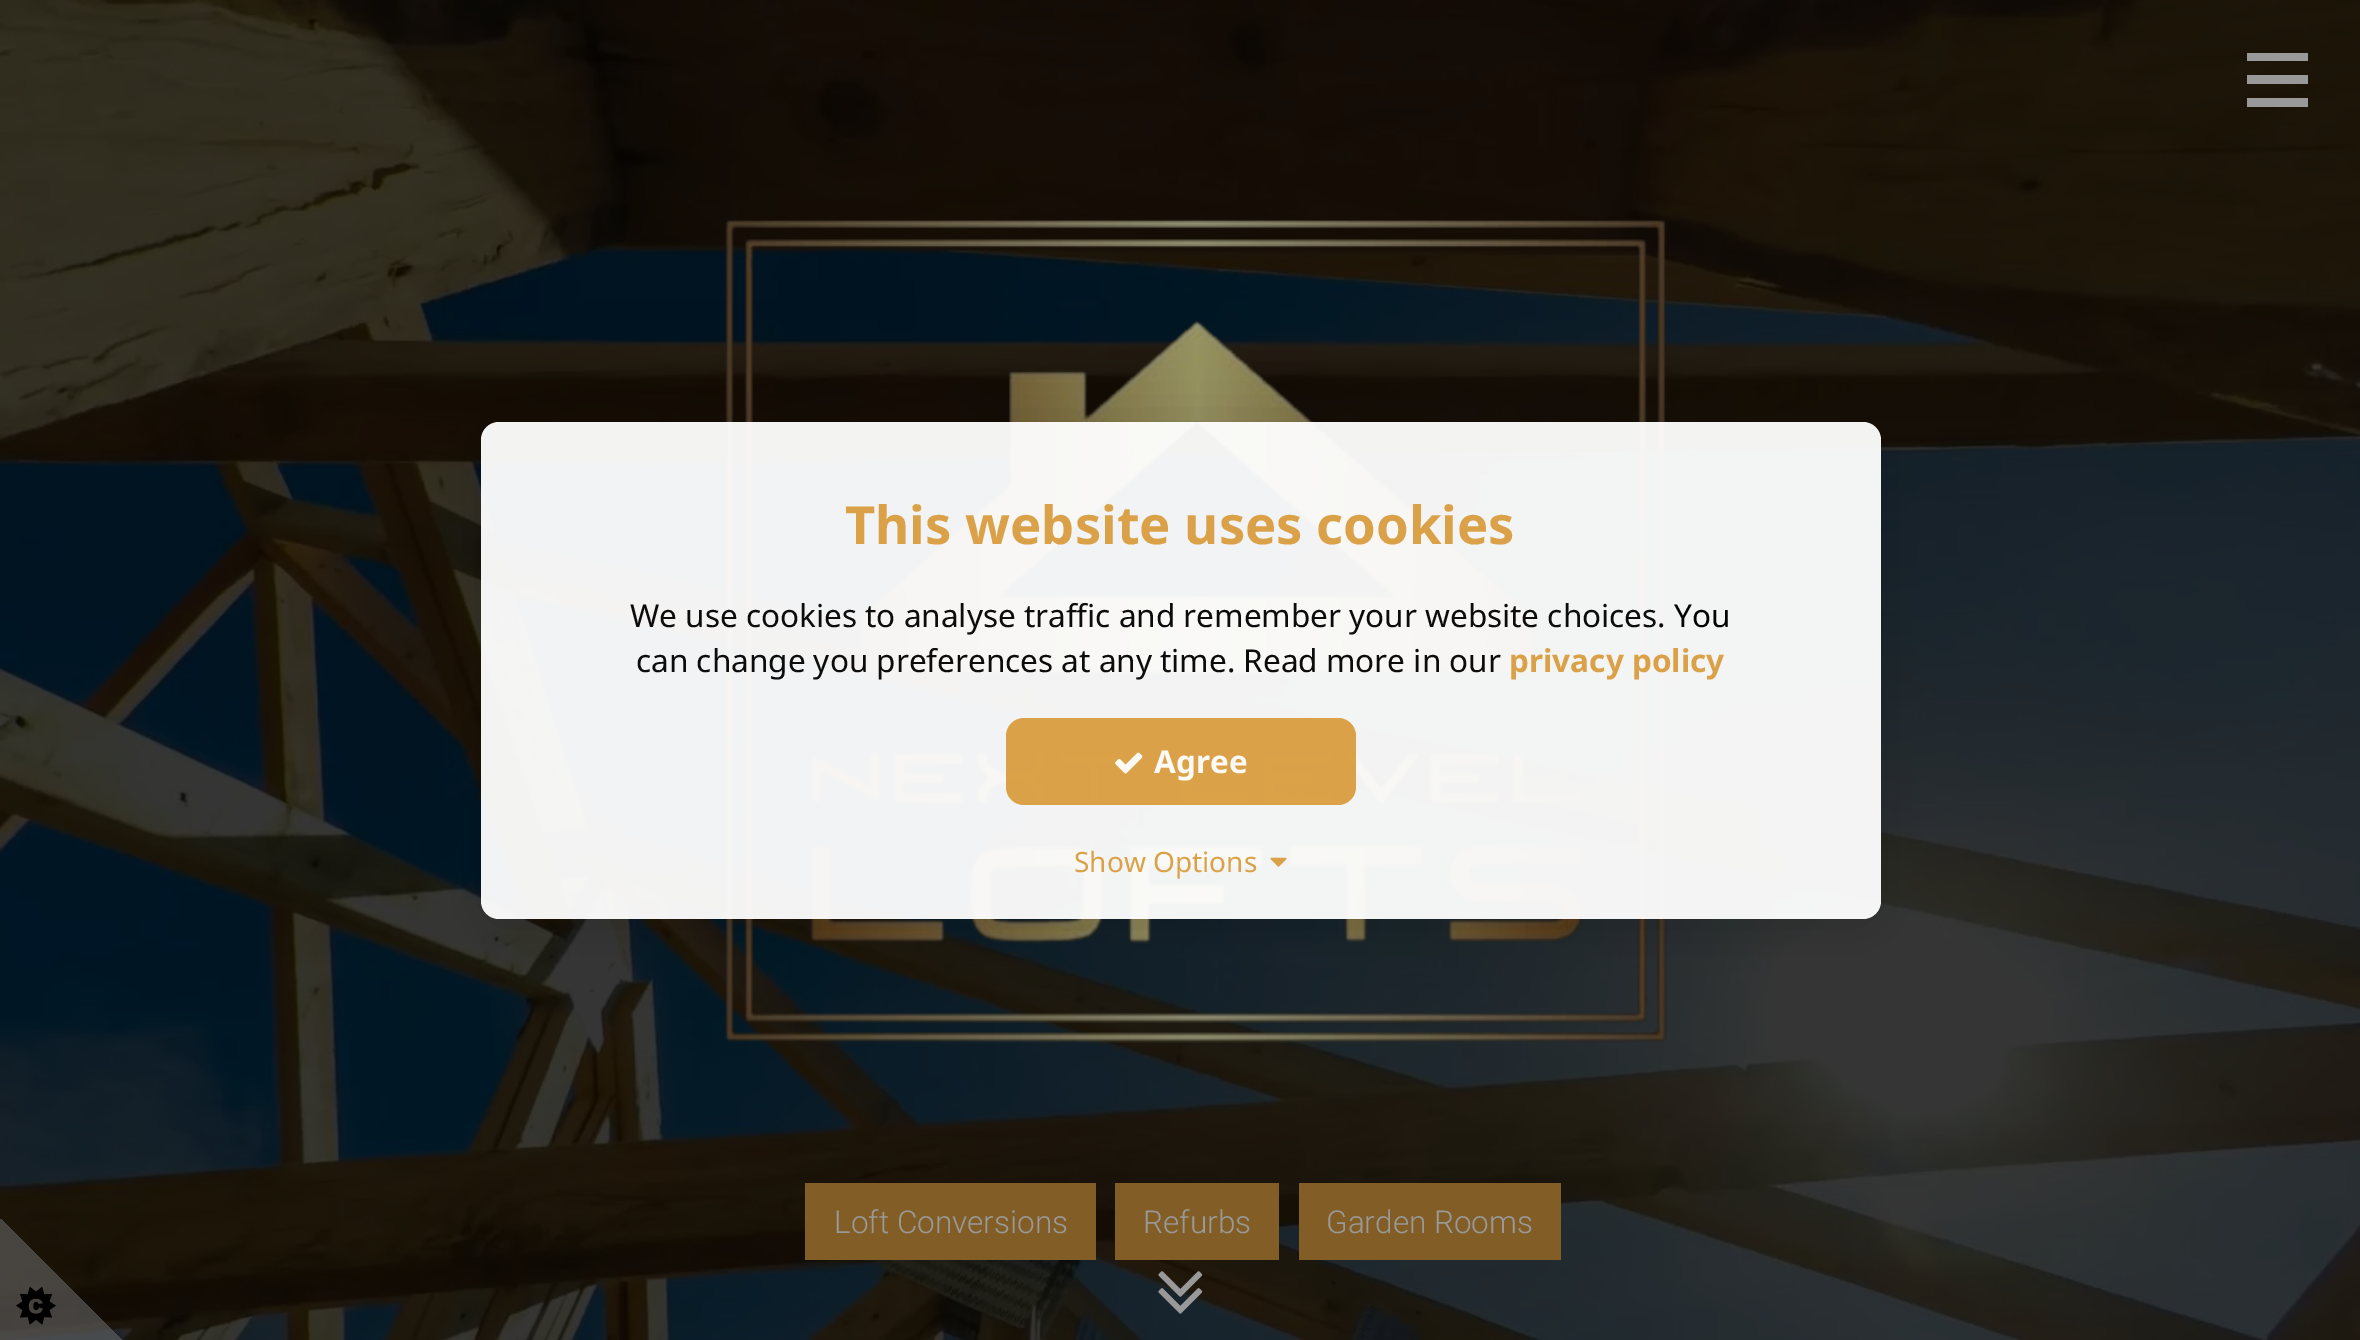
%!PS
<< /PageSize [2360 1340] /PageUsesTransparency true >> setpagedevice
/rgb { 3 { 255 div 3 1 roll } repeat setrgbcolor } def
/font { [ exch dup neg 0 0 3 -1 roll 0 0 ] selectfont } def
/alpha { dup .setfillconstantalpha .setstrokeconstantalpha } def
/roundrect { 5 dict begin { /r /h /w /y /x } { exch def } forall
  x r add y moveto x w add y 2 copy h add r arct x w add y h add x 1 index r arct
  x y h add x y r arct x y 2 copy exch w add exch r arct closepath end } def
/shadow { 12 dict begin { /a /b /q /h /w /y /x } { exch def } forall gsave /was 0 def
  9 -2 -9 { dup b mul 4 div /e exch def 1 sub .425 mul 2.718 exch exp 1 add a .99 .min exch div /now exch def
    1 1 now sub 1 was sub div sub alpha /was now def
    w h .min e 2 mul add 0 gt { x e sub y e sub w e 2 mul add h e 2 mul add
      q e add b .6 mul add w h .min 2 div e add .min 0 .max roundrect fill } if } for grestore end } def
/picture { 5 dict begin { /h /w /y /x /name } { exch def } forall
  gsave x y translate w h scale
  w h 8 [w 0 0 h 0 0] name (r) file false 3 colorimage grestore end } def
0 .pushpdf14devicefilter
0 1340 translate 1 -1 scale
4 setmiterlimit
255 255 255 rgb
0 0 2360 1340 rectfill
(img/3.rgb) 0 0 2360 1340 picture
(img/4.rgb) 725 219 942 824 picture
gsave
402 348 moveto 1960 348 lineto 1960 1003 lineto 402 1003 lineto closepath 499 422 moveto 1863 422 lineto 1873 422 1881 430 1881 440 curveto 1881 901 lineto 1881 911 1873 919 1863 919 curveto 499 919 lineto 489 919 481 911 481 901 curveto 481 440 lineto 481 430 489 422 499 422 curveto closepath eoclip newpath
0 0 0 rgb
481 427 1400 497 18 26 0.15 shadow
grestore
0.95 alpha
481 422 1400 497 18 roundrect fill
217 157 63 rgb
1006 718 350 87 18 roundrect fill
1 alpha
(img/1.rgb) 1115 752 28 22 picture
(img/2.rgb) 1270 857 17 10 picture
[
  [2247 53 61 8 153 153 153]
  [2247 75 61 9 153 153 153]
  [2247 98 61 9 153 153 153]
  [805 1183 291 77 130 94 38]
  [1115 1183 164 77 130 94 38]
  [1299 1183 262 77 130 94 38]
] { aload pop rgb rectfill } forall
(img/5.rgb) 1158 1271 45 43 picture
(img/6.rgb) 16 1286 40 39 picture
/NotoSans-Bold 52.5 font
218 161 72 rgb
845 544 moveto (This website uses cookies) show
/NotoSans-Regular 31.5 font
12 12 12 rgb
630 627 moveto (We use cookies to analyse traffic and remember your website choices.) show
1 2 2 rgb
1674 627 moveto (You) show
12 12 12 rgb
636 672 moveto (can change you preferences at any time. Read more in our) show
/NotoSans-Bold 31.5 font
218 161 72 rgb
1509 672 moveto (privacy policy) show
253 250 246 rgb
1154 773 moveto (Agree) show
/NotoSans-Regular 28 font
218 161 72 rgb
1074 872 moveto (Show Options) show
/Roboto-Light 31.5 font
153 153 153 rgb
[
  [(Loft Conversions) 834 1233]
  [(Refurbs) 1143 1233]
  [(Garden Rooms) 1326 1233]
] { aload pop moveto show } forall
.poppdf14devicefilter showpage
